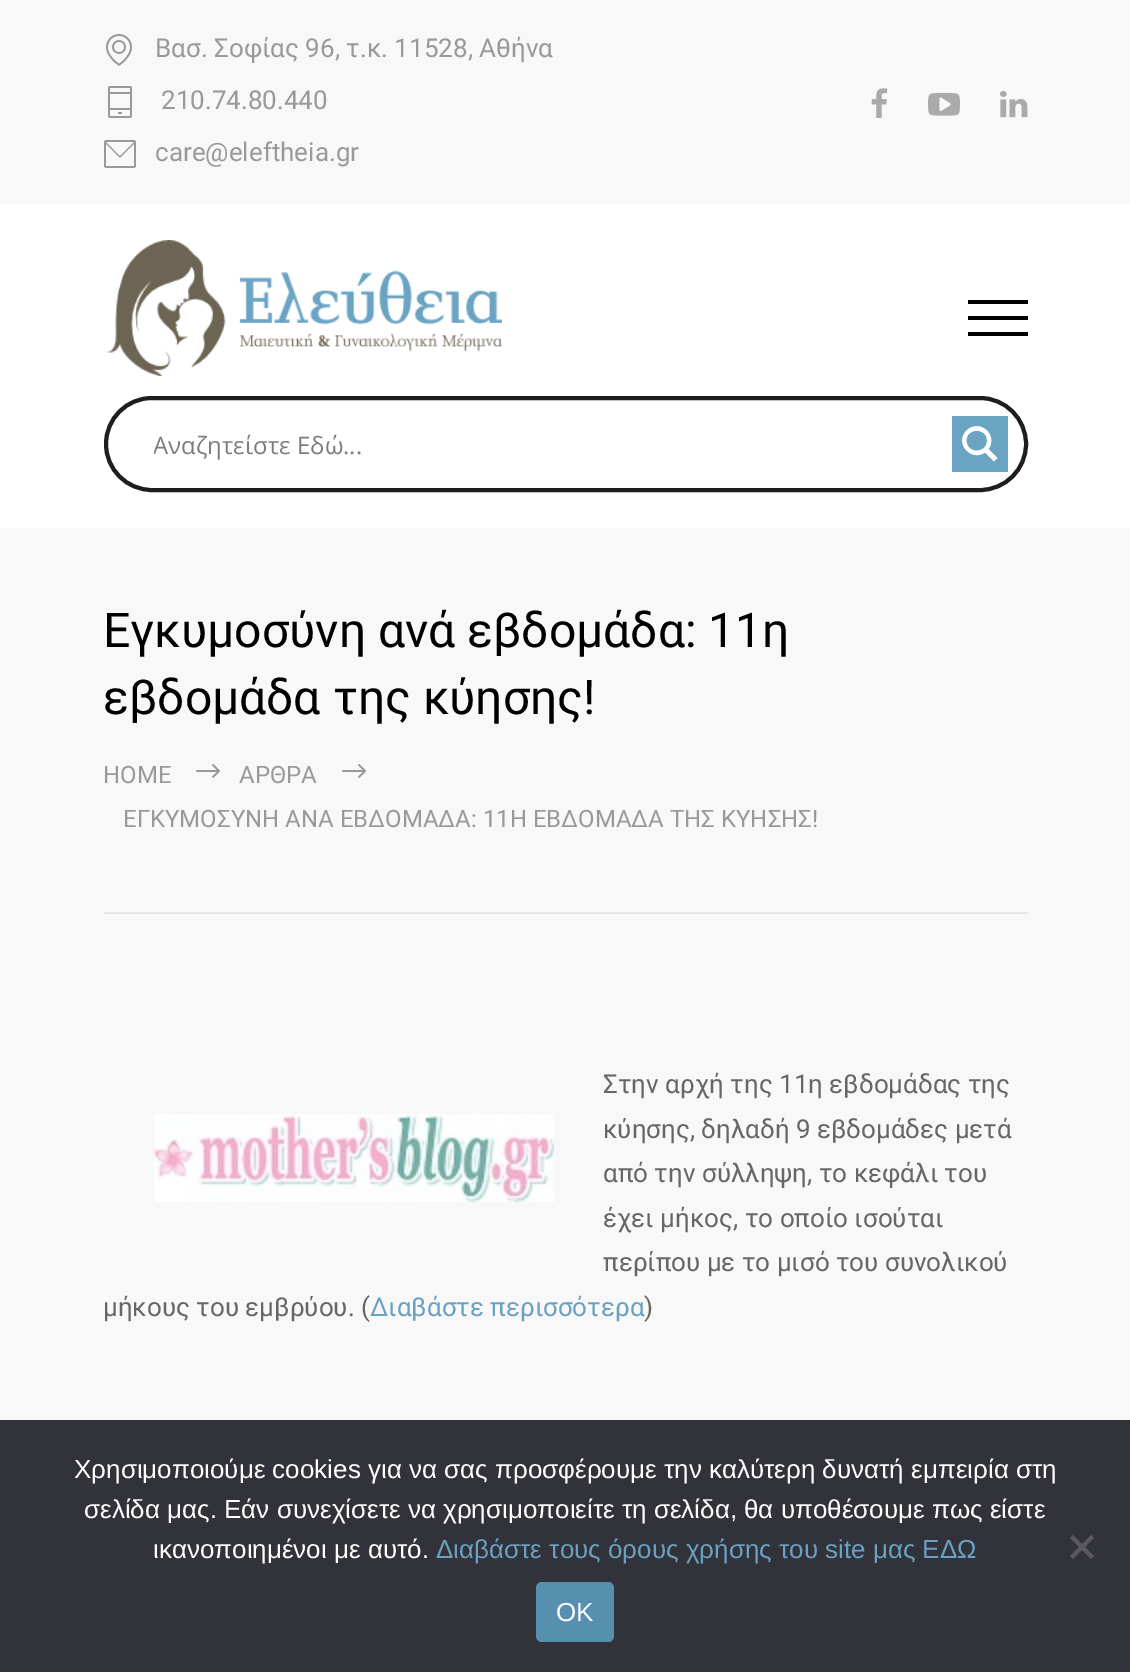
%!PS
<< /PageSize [1130 1672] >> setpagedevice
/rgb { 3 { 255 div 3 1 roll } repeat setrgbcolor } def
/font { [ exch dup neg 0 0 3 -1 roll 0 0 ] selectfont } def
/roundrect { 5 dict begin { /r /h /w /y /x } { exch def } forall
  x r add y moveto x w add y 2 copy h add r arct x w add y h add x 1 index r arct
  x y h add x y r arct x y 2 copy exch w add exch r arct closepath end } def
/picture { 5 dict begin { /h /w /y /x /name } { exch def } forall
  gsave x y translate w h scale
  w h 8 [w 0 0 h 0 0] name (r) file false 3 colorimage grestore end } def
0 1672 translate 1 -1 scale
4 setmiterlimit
248 248 248 rgb
0 0 1130 1672 rectfill
(img/1.rgb) 106 34 26 32 picture
(img/2.rgb) 108 86 24 32 picture
(img/3.rgb) 104 140 32 28 picture
(img/4.rgb) 871 88 17 30 picture
(img/5.rgb) 928 92 32 24 picture
(img/6.rgb) 1000 91 28 27 picture
255 255 255 rgb
0 204 1130 324 rectfill
(img/7.rgb) 105 240 397 136 picture
[
  [968 300 60 4 0 0 0]
  [968 316 60 4 0 0 0]
  [968 332 60 4 0 0 0]
] { aload pop rgb rectfill } forall
30 30 30 rgb
4 setlinewidth
106 398 920 92 46 roundrect stroke
107 164 194 rgb
952 416 56 56 rectfill
255 255 255 rgb
997.5 458 moveto 988.5 449 lineto 998.5 435 979.5 418 966.5 430.5 curveto 954 443 971 462 985 452.5 curveto 994 461.5 lineto closepath 966.5 440.5 moveto 966.5 427.5 987 427.5 987 440.5 curveto 987 454 966.5 454 966.5 440.5 curveto closepath fill
229 229 229 rgb
104 912 924 2 rectfill
(img/8.rgb) 196 764 24 14 picture
(img/8.rgb) 342 764 24 14 picture
(img/9.rgb) 154 1114 400 88 picture
50 50 58 rgb
0 1420 1130 252 rectfill
89 89 93 rgb
1091 1535 moveto 1094 1538 lineto 1073 1559 lineto 1070 1556 lineto closepath fill
1070 1538 moveto 1073 1535 lineto 1094 1556 lineto 1091 1559 lineto closepath fill
87 144 174 rgb
536 1582 78 60 6 roundrect fill
/Roboto-Regular 26 font
153 153 153 rgb
[
  [(Βασ. Σοφίας 96, τ.κ. 11528, Αθήνα) 155 57]
  [(210.74.80.440) 161 109]
  [(care@eleftheia.gr) 155 161]
] { aload pop moveto show } forall
gsave
154 428 788 34 rectclip
/OpenSans-Regular 24 font
125 125 125 rgb
153 454 moveto (Αναζητείστε Εδώ...) show
grestore
/Roboto-Regular 48 font
0 0 0 rgb
103 647 moveto (Εγκυμοσύνη ανά εβδομάδα: 11η) show
103 714 moveto (εβδομάδα της κύησης!) show
/Roboto-Regular 24 font
153 153 153 rgb
[
  [(HOME) 103 783]
  [(ΑΡΘΡΑ) 239 783]
  [(ΕΓΚΥΜΟΣΥΝΗ ΑΝΑ ΕΒΔΟΜΑΔΑ: 11Η ΕΒΔΟΜΑΔΑ ΤΗΣ ΚΥΗΣΗΣ!) 123 827]
] { aload pop moveto show } forall
/Roboto-Regular 26 font
102 102 102 rgb
[
  [(Στην αρχή της 11η εβδομάδας της) 603 1093]
  [(κύησης, δηλαδή 9 εβδομάδες μετά) 603 1138]
  [(από την σύλληψη, το κεφάλι του) 603 1182]
  [(έχει μήκος, το οποίο ισούται) 603 1227]
  [(περίπου με το μισό του συνολικού) 603 1271]
  [(μήκους του εμβρύου. \() 103 1316]
] { aload pop moveto show } forall
106 161 193 rgb
370 1316 moveto (Διαβάστε περισσότερα) show
102 102 102 rgb
644 1316 moveto (\)) show
/LiberationSans-Regular 26 font
255 255 255 rgb
[
  [(Χρησιμοποιούμε cookies για να σας προσφέρουμε την καλύτερη δυνατή εμπειρία στη) 74 1478]
  [(σελίδα μας. Εάν συνεχίσετε να χρησιμοποιείτε τη σελίδα, θα υποθέσουμε πως είστε) 84 1518]
  [(ικανοποιημένοι με αυτό.) 153 1558]
] { aload pop moveto show } forall
106 161 193 rgb
436 1558 moveto (Διαβάστε τους όρους χρήσης του site μας ΕΔΩ) show
255 255 255 rgb
556 1621 moveto (OK) show
showpage
